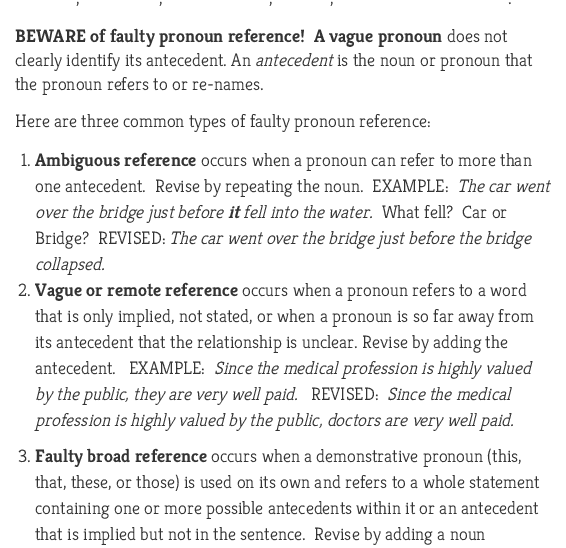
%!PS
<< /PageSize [566 548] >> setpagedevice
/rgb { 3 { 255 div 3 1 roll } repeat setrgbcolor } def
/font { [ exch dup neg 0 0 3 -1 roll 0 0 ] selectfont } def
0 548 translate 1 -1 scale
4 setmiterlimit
255 255 255 rgb
0 0 566 548 rectfill
/Kreon-Light 18 font
51 51 51 rgb
[
  [(,) 76 4]
  [(,) 159 4]
  [(,) 269 4]
  [(,) 330 4]
  [(.) 508 4]
] { aload pop moveto show } forall
/Kreon-Bold 18 font
15 42 moveto (BEWARE of faulty pronoun reference!  A vague pronoun) show
/Kreon-Light 18 font
447 42 moveto (does not) show
15 66 moveto (clearly identify its antecedent. An) show
/Kreon-LightItalic 18 font
255 66 moveto (antecedent) show
/Kreon-Light 18 font
[
  [(is the noun or pronoun that) 337 66]
  [(the pronoun refers to or re-names.) 15 90]
  [(Here are three common types of faulty pronoun reference:) 15 127]
  [(1.) 21 166]
] { aload pop moveto show } forall
/Kreon-Bold 18 font
35 166 moveto (Ambiguous reference) show
/Kreon-Light 18 font
201 166 moveto (occurs when a pronoun can refer to more than) show
35 192 moveto (one antecedent.  Revise by repeating the noun.  EXAMPLE:) show
/Kreon-LightItalic 18 font
457 192 moveto (The car went) show
35 218 moveto (over the bridge just before) show
/Kreon-BoldItalic 18 font
228 218 moveto (it) show
/Kreon-LightItalic 18 font
243 218 moveto (fell into the water.) show
/Kreon-Light 18 font
[
  [(What fell?  Car or) 382 218]
  [(Bridge?) 35 244]
  [(REVISED:) 98 244]
] { aload pop moveto show } forall
/Kreon-LightItalic 18 font
169 244 moveto (The car went over the bridge just before the bridge) show
35 270 moveto (collapsed.) show
/Kreon-Light 18 font
18 296 moveto (2.) show
/Kreon-Bold 18 font
35 296 moveto (Vague or remote reference) show
/Kreon-Light 18 font
[
  [(occurs when a pronoun refers to a word) 242 296]
  [(that is only implied, not stated, or when a pronoun is so far away from) 35 322]
  [(its antecedent that the relationship is unclear. Revise by adding the) 35 348]
  [(antecedent.   EXAMPLE:) 35 374]
] { aload pop moveto show } forall
/Kreon-LightItalic 18 font
214 374 moveto (Since the medical profession is highly valued) show
35 400 moveto (by the public, they are very well paid.) show
/Kreon-Light 18 font
311 400 moveto (REVISED:) show
/Kreon-LightItalic 18 font
387 400 moveto (Since the medical) show
35 426 moveto (profession is highly valued by the public, doctors are very well paid.) show
/Kreon-Light 18 font
18 462 moveto (3.) show
/Kreon-Bold 18 font
35 462 moveto (Faulty broad reference) show
/Kreon-Light 18 font
[
  [(occurs when a demonstrative pronoun \(this,) 211 462]
  [(that, these, or those\) is used on its own and refers to a whole statement) 35 488]
  [(containing one or more possible antecedents within it or an antecedent) 35 514]
  [(that is implied but not in the sentence.  Revise by adding a noun) 35 540]
] { aload pop moveto show } forall
showpage
